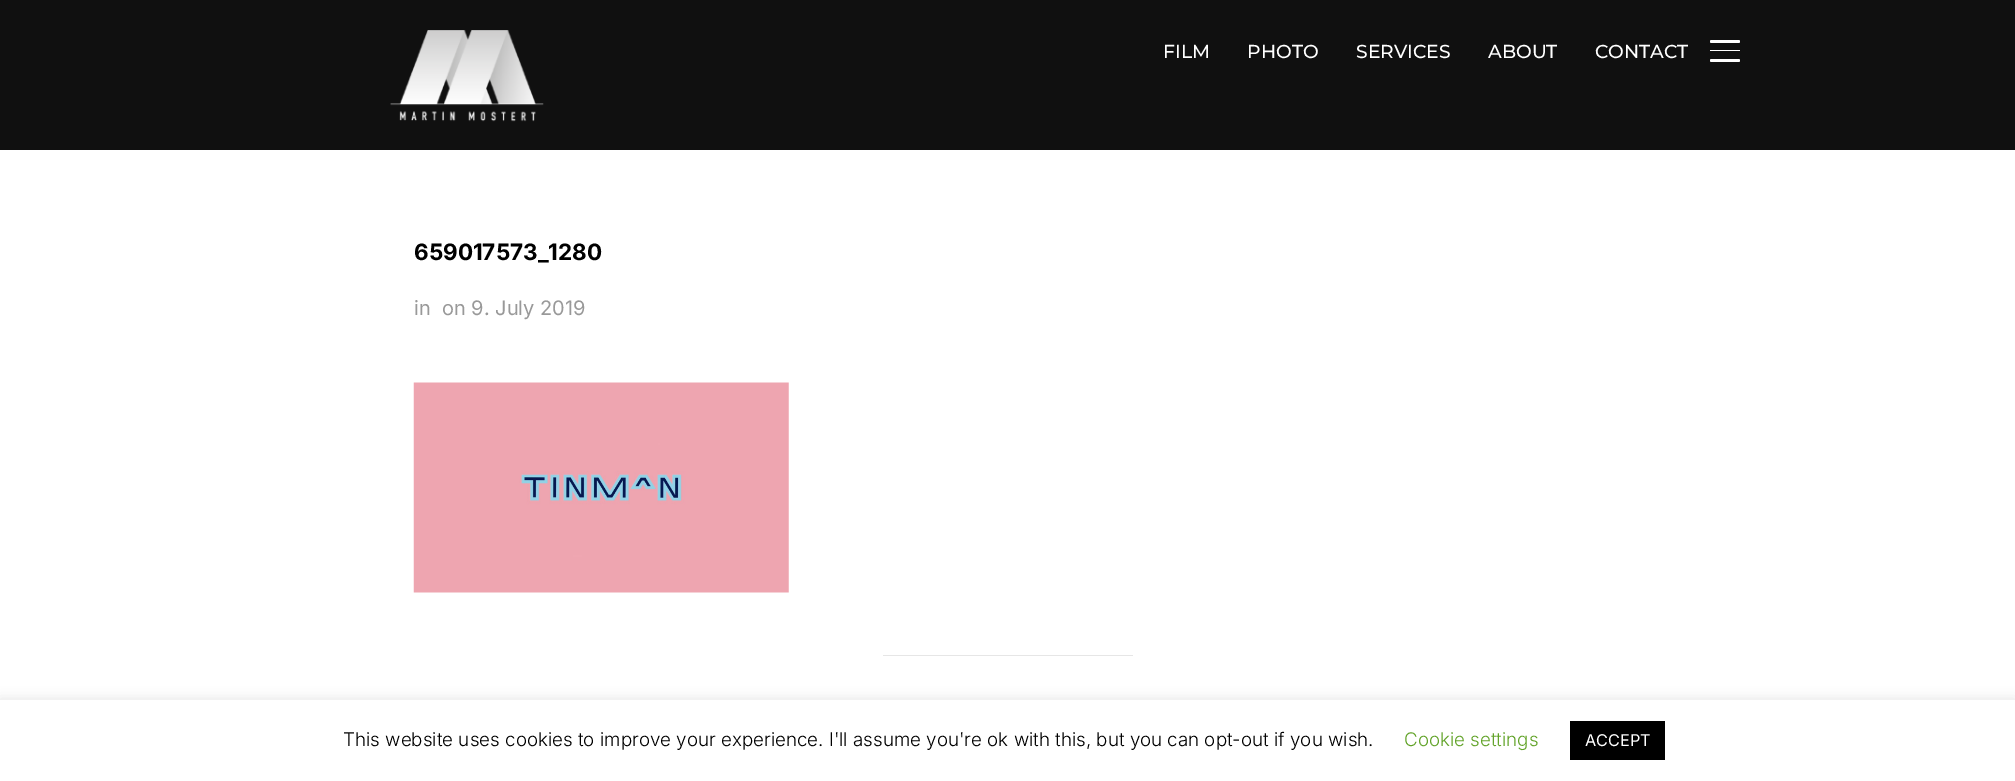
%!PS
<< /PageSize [2015 781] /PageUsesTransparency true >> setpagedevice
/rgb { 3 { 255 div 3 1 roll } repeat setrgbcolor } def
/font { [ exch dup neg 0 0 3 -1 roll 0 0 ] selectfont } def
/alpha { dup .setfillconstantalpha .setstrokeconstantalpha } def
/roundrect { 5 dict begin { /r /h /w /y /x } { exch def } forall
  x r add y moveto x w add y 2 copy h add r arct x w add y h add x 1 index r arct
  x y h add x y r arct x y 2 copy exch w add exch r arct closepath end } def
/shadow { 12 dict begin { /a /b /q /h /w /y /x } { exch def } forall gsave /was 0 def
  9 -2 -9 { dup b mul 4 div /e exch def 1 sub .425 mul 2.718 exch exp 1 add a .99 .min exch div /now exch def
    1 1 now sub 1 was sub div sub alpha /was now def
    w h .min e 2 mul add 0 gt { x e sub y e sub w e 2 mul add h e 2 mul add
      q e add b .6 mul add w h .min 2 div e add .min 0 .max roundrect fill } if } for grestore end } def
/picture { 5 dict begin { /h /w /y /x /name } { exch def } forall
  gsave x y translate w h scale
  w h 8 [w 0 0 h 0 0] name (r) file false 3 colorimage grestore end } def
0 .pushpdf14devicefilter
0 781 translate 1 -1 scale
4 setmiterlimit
255 255 255 rgb
0 0 2015 781 rectfill
16 16 16 rgb
0 0 2015 150 rectfill
(img/1.rgb) 390 30 154 92 picture
255 255 255 rgb
1710 40 30 3 1.5 roundrect fill
1710 50 30 1 0.5 roundrect fill
1710 59 30 3 1.5 roundrect fill
(img/2.rgb) 413 382 376 211 picture
230 230 230 rgb
883 655 250 1 rectfill
172 171 171 rgb
0 699 2015 81 0 6 0.3 shadow
255 255 255 rgb
0 700 2015 81 rectfill
0 0 0 rgb
1570 721 95 39 rectfill
/Montserrat-Medium 18.75 font
255 255 255 rgb
[
  [(FILM) 1163 58]
  [(PHOTO) 1247 58]
  [(SERVICES) 1356 58]
  [(ABOUT) 1488 58]
  [(CONTACT) 1595 58]
] { aload pop moveto show } forall
/Inter-Bold 22.5 font
0 0 0 rgb
414 260 moveto (659017573_1280) show
/Inter-Regular 20 font
153 153 153 rgb
414 315 moveto (in) show
442 315 moveto (on 9. July 2019) show
/Inter-Light 18.75 font
0 0 0 rgb
343 746 moveto (This website uses cookies to improve your experience. I'll assume you're ok with this, but you can opt-out if you wish.) show
98 163 41 rgb
1404 746 moveto (Cookie settings) show
/Inter-Regular 16.25 font
255 255 255 rgb
1585 746 moveto (ACCEPT) show
.poppdf14devicefilter showpage
